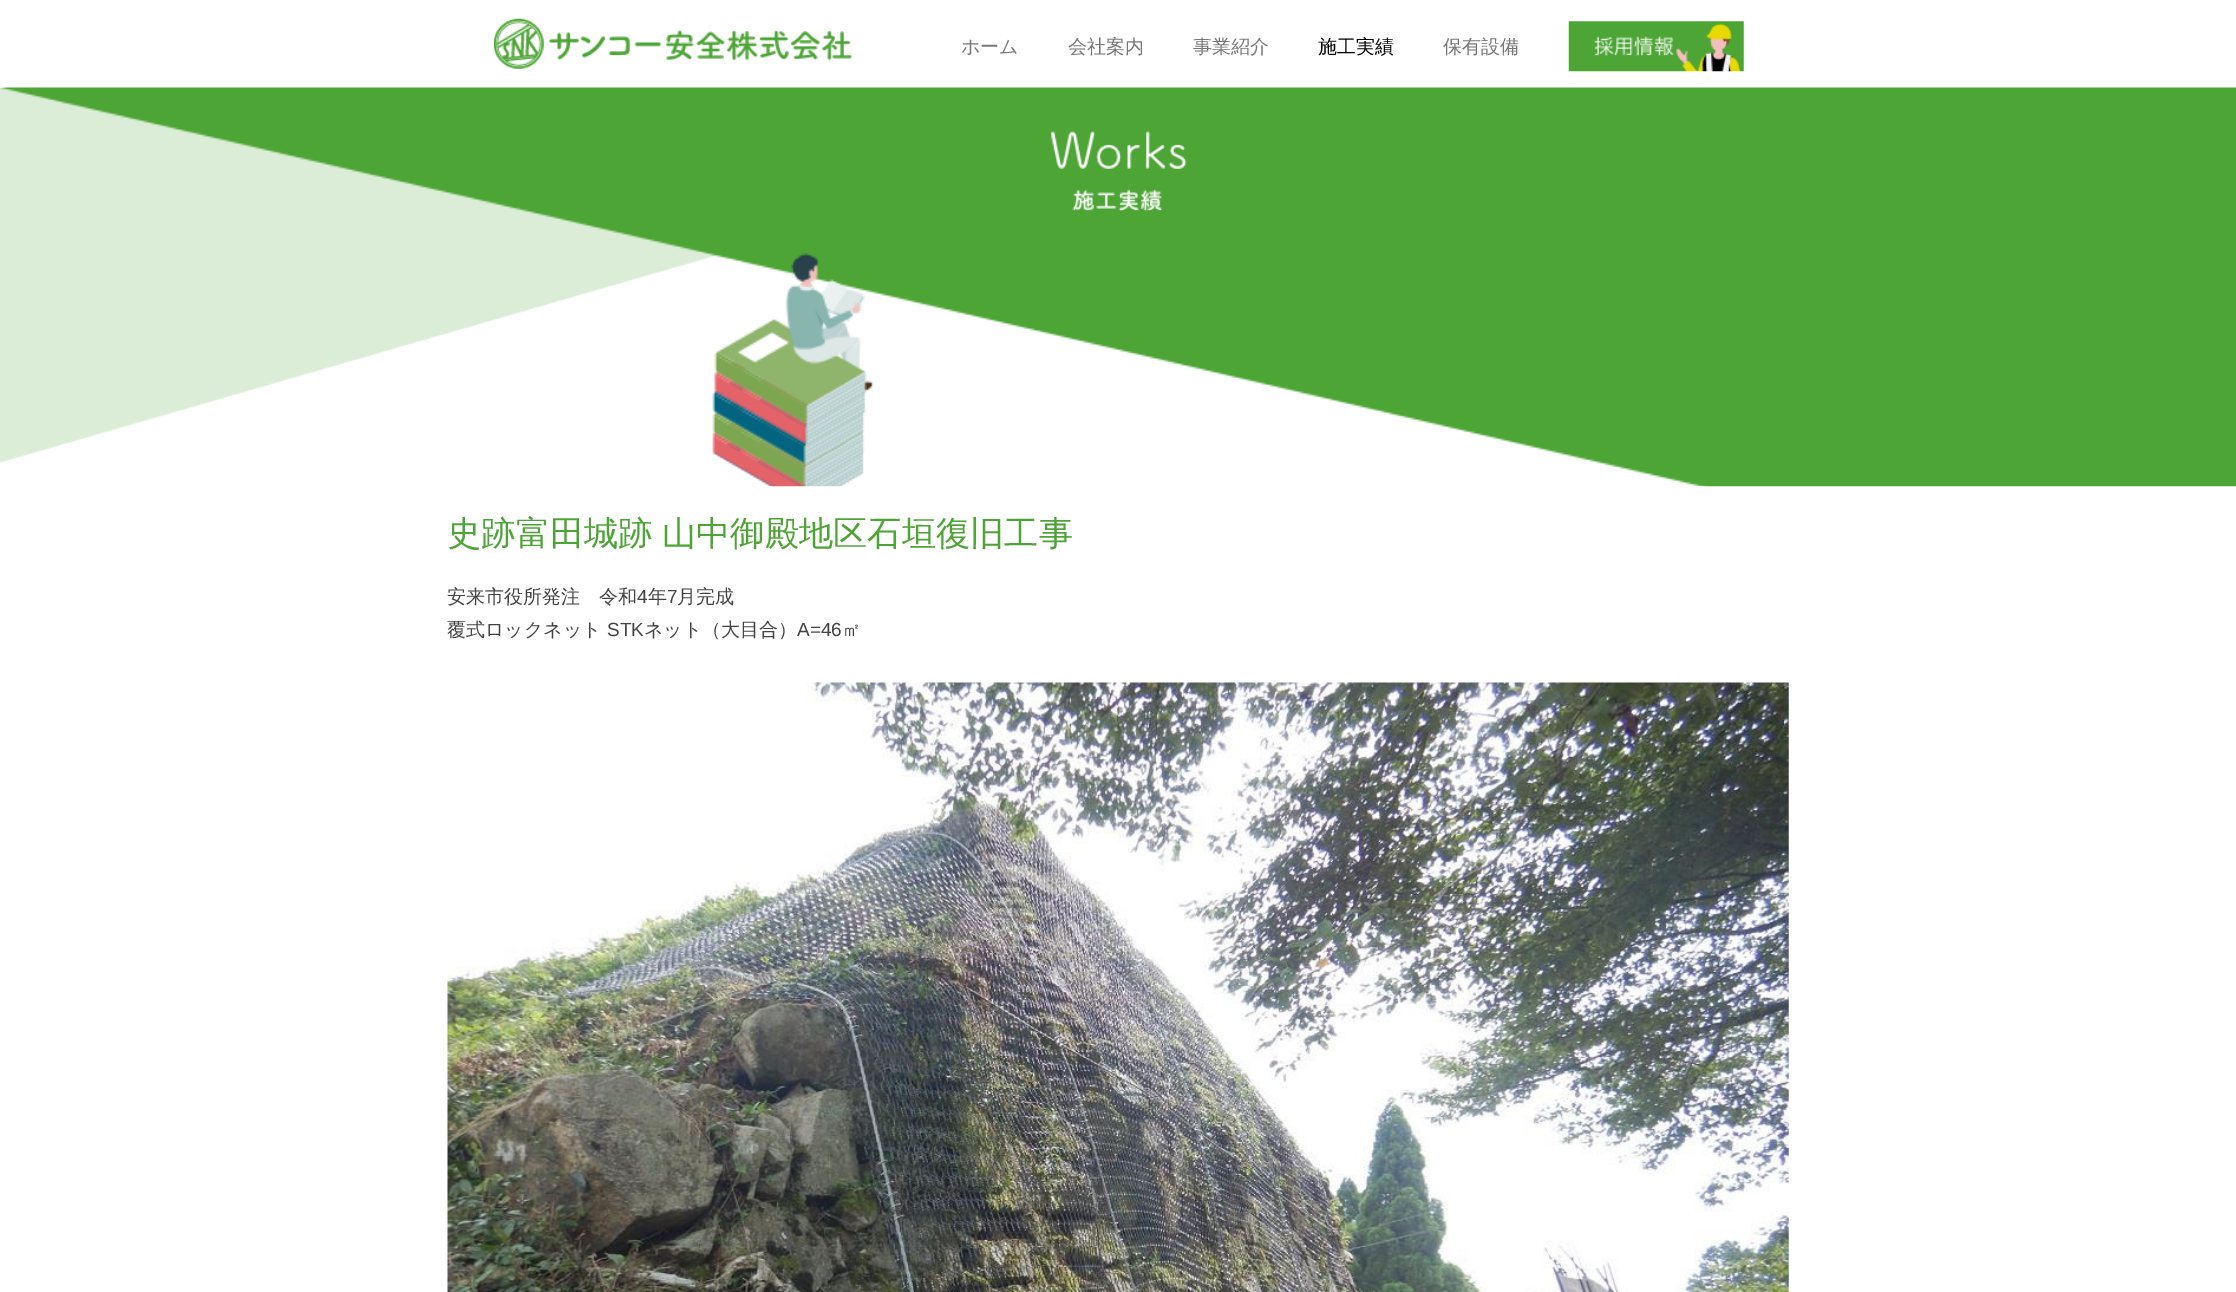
%!PS
<< /PageSize [2236 1292] >> setpagedevice
/rgb { 3 { 255 div 3 1 roll } repeat setrgbcolor } def
/font { [ exch dup neg 0 0 3 -1 roll 0 0 ] selectfont } def
/picture { 5 dict begin { /h /w /y /x /name } { exch def } forall
  gsave x y translate w h scale
  w h 8 [w 0 0 h 0 0] name (r) file false 3 colorimage grestore end } def
0 1292 translate 1 -1 scale
4 setmiterlimit
255 255 255 rgb
0 0 2236 1292 rectfill
(img/1.rgb) 0 88 722 375 picture
(img/2.rgb) 493 18 360 51 picture
(img/3.rgb) 1568 21 176 51 picture
(img/4.rgb) 0 87 2236 400 picture
(img/5.rgb) 1050 131 137 81 picture
(img/6.rgb) 447 682 1342 610 picture
/WenQuanYiZenHei-Medium 19 font
119 119 119 rgb
[
  [(ホーム) 961 53]
  [(会社案内) 1068 53]
  [(事業紹介) 1193 53]
] { aload pop moveto show } forall
0 0 0 rgb
1318 53 moveto (施工実績) show
119 119 119 rgb
1443 53 moveto (保有設備) show
/WenQuanYiZenHei-Medium 34.25 font
76 165 53 rgb
447 545 moveto -1 0 32 (史跡富田城跡 山中御殿地区石垣復旧工事) widthshow
/WenQuanYiZenHei-Medium 19 font
68 68 68 rgb
447 603 moveto (安来市役所発注　令和) show
/LiberationSans-Regular 19 font
637 603 moveto (4) show
/WenQuanYiZenHei-Medium 19 font
648 603 moveto (年) show
/LiberationSans-Regular 19 font
667 603 moveto (7) show
/WenQuanYiZenHei-Medium 19 font
677 603 moveto (月完成) show
447 636 moveto (覆式ロックネット) show
/LiberationSans-Regular 19 font
607 636 moveto (STK) show
/WenQuanYiZenHei-Medium 19 font
644 636 moveto (ネット（大目合）) show
/LiberationSans-Regular 19 font
797 636 moveto (A=46) show
/WenQuanYiZenHei-Medium 19 font
842 636 moveto (㎡) show
showpage
